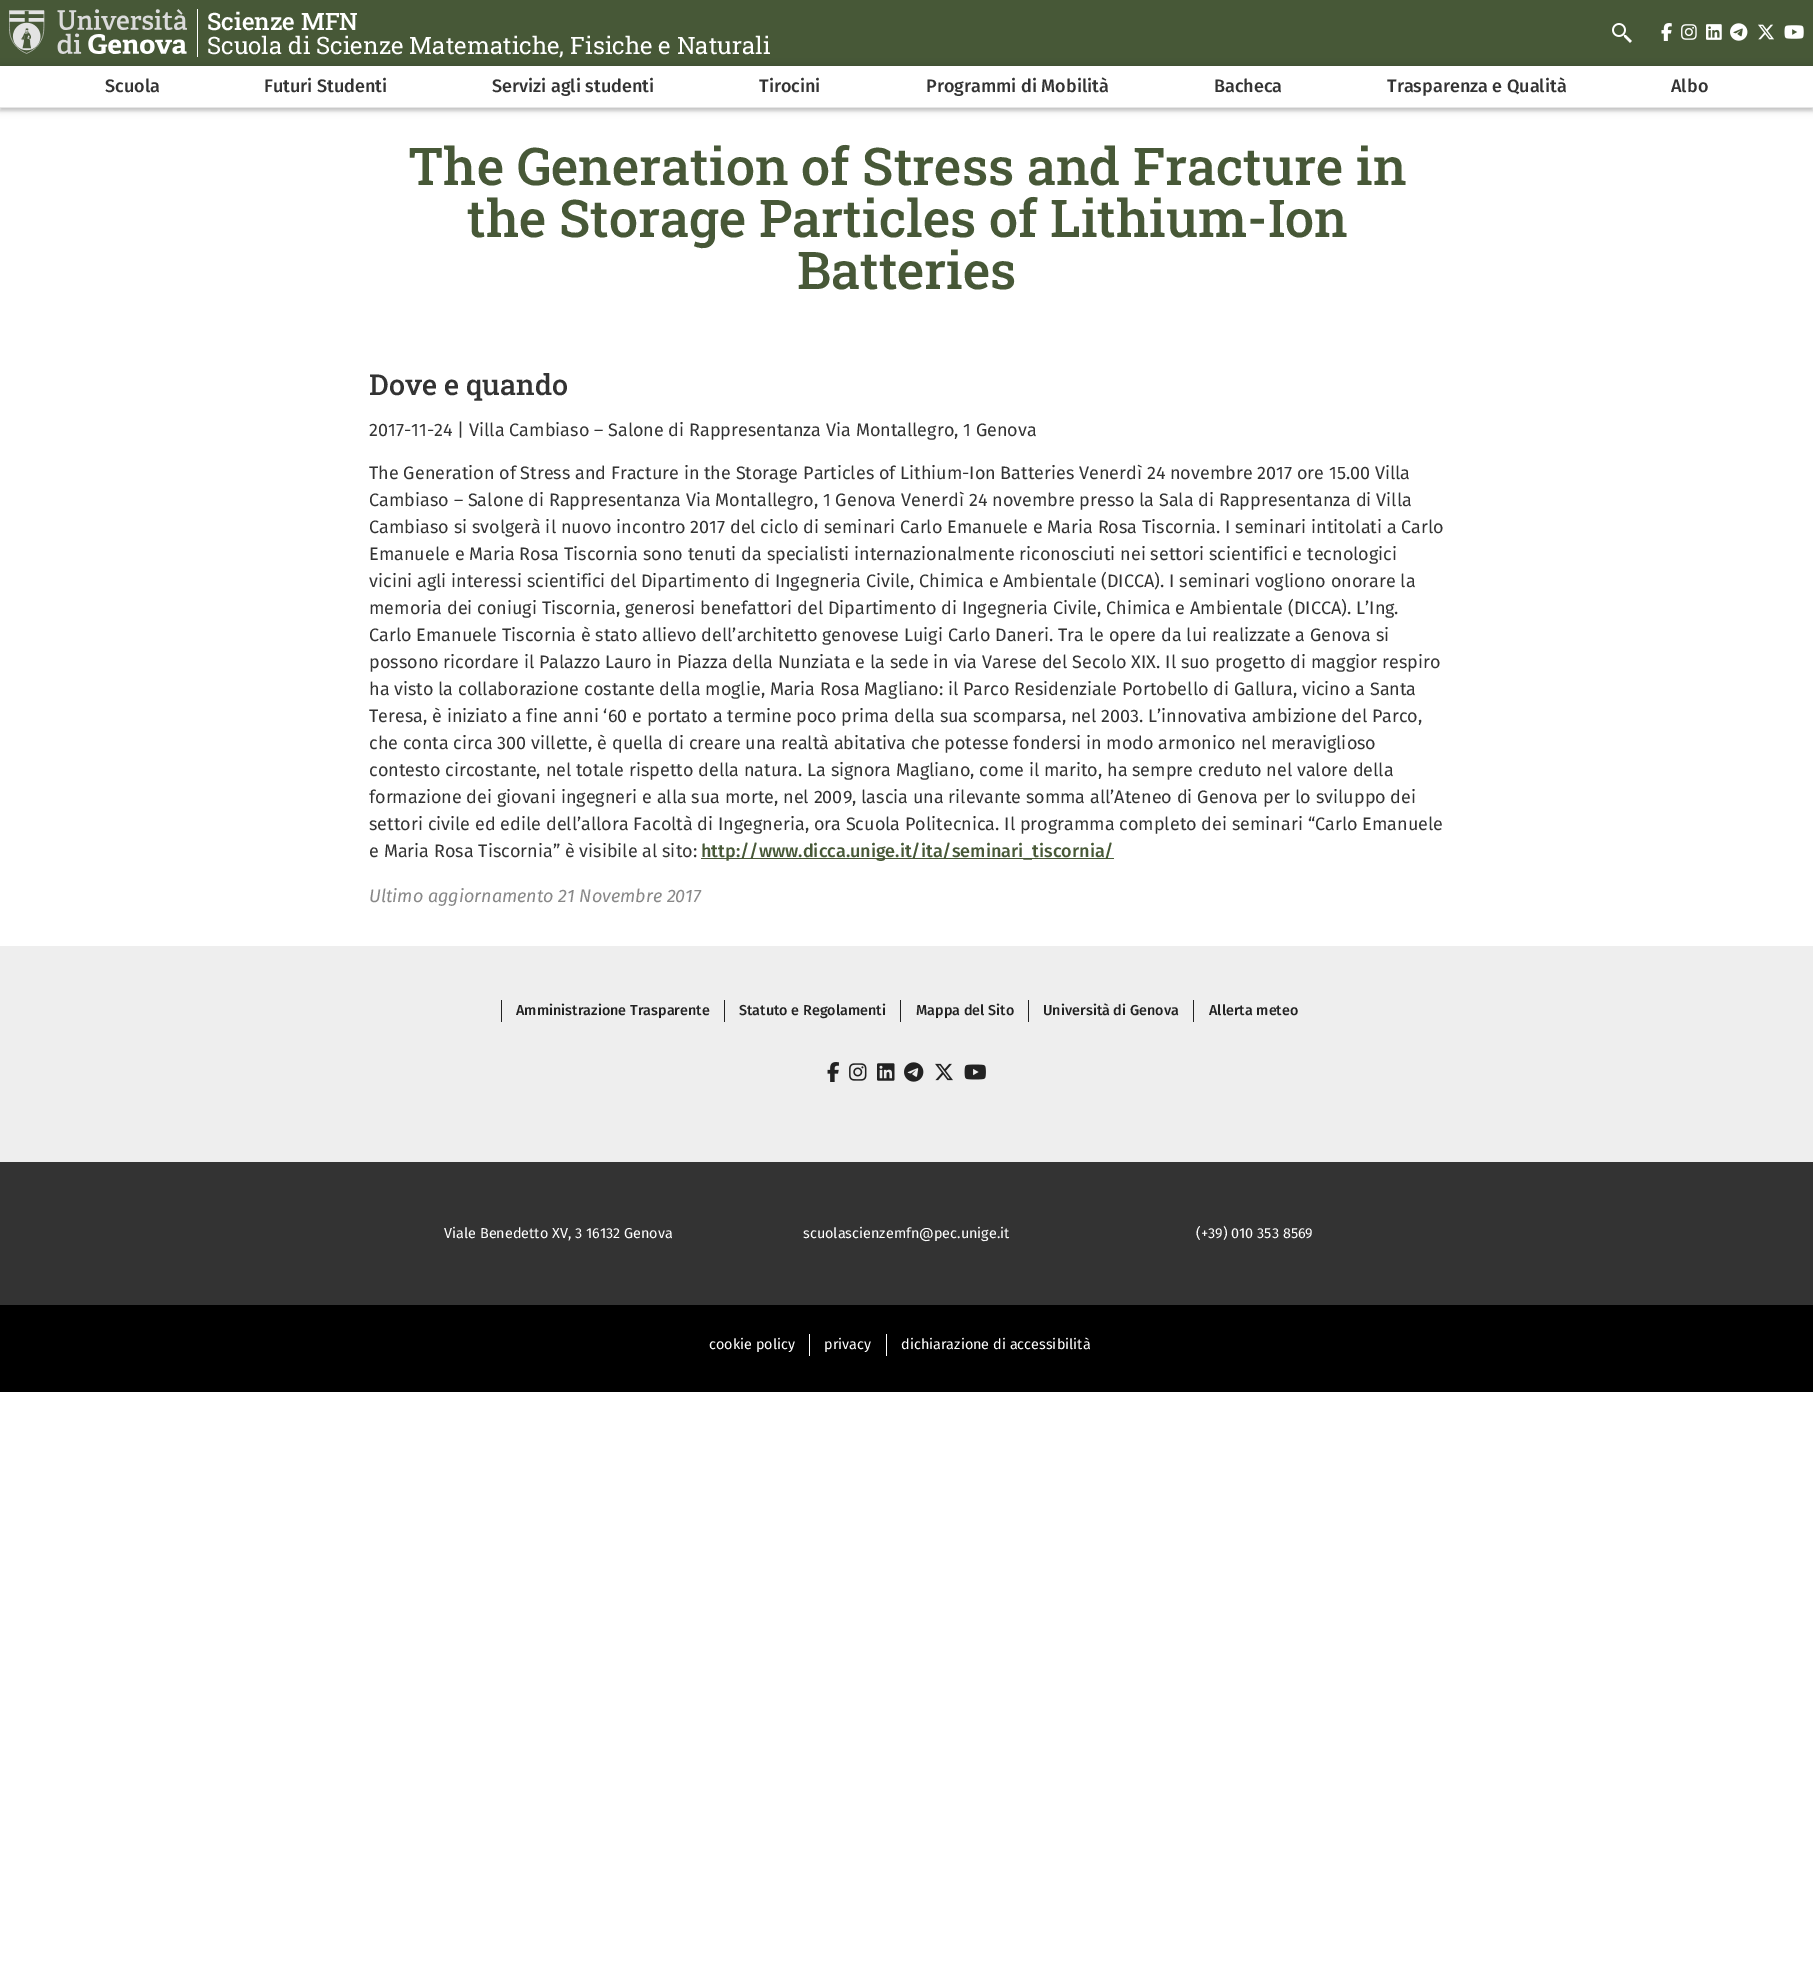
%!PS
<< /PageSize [1813 1986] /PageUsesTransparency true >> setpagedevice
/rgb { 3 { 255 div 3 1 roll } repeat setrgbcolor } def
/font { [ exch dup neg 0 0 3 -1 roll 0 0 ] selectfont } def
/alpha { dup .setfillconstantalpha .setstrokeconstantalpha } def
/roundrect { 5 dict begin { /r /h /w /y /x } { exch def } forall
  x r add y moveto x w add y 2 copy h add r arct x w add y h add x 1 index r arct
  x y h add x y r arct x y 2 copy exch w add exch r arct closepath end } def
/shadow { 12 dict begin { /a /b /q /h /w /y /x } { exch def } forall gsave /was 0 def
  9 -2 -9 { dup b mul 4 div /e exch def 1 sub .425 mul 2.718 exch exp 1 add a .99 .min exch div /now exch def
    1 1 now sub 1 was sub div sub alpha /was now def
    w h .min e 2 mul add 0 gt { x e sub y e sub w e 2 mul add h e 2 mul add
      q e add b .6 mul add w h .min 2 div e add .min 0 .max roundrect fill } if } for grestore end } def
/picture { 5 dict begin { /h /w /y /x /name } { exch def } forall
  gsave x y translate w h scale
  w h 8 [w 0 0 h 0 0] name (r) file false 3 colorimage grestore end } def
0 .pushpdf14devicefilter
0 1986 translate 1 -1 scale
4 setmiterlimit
255 255 255 rgb
0 0 1813 1986 rectfill
71 88 55 rgb
0 0 1813 66 rectfill
(img/1.rgb) 9 9 178 45 picture
255 255 255 rgb
197 9 1 48 rectfill
(img/2.rgb) 1612 23 20 20 picture
(img/3.rgb) 1661 23 11 18 picture
(img/4.rgb) 1681 24 16 16 picture
(img/5.rgb) 1706 24 16 16 picture
(img/6.rgb) 1730 23 18 18 picture
(img/7.rgb) 1758 24 16 16 picture
(img/8.rgb) 1784 25 20 14 picture
0 0 0 rgb
0 69 1813 42 0 1.5 0.15 shadow
0 66 1813 42 0 5 0.15 shadow
[
  [0 66 1813 41 255 255 255]
  [0 107 1813 1 230 230 230]
  [701 858 413 1 71 88 55]
  [0 946 1813 216 238 238 238]
  [501 1000 1 22 34 34 34]
  [724 1000 1 22 34 34 34]
  [900 1000 1 22 34 34 34]
  [1028 1000 1 22 34 34 34]
  [1193 1000 1 22 34 34 34]
] { aload pop rgb rectfill } forall
(img/9.rgb) 827 1062 12 20 picture
(img/10.rgb) 849 1063 18 18 picture
(img/11.rgb) 877 1063 18 18 picture
(img/12.rgb) 904 1062 20 20 picture
(img/13.rgb) 935 1063 18 18 picture
(img/14.rgb) 964 1064 22 16 picture
[
  [0 1162 1813 143 51 51 51]
  [0 1305 1813 87 0 0 0]
  [809 1334 1 22 255 255 255]
  [886 1334 1 22 255 255 255]
] { aload pop rgb rectfill } forall
/RobotoSlab-Medium 24 font
207 30 moveto (Scienze MFN) show
/RobotoSlab-Regular 24 font
207 54 moveto (Scuola di Scienze Matematiche, Fisiche e Naturali) show
/FiraSans-Medium 18 font
51 51 51 rgb
[
  [(Scuola) 105 92]
  [(Futuri Studenti) 264 92]
  [(Servizi agli studenti) 492 92]
  [(Tirocini) 759 92]
  [(Programmi di Mobilità) 926 92]
  [(Bacheca) 1214 92]
  [(Trasparenza e Qualità) 1387 92]
  [(Albo) 1671 92]
] { aload pop moveto show } forall
/RobotoSlab-Medium 52 font
71 88 55 rgb
[
  [(The Generation of Stress and Fracture in) 408 185]
  [(the Storage Particles of Lithium-Ion) 467 237]
  [(Batteries) 797 289]
] { aload pop moveto show } forall
/RobotoSlab-Medium 28.75 font
51 51 51 rgb
369 395 moveto (Dove e quando) show
/FiraSans-Regular 18 font
[
  [(2017-11-24 | Villa Cambiaso – Salone di Rappresentanza Via Montallegro, 1 Genova) 369 436]
  [(The Generation of Stress and Fracture in the Storage Particles of Lithium-Ion Batteries Venerdì 24 novembre 2017 ore 15.00 Villa) 369 479]
  [(Cambiaso – Salone di Rappresentanza Via Montallegro, 1 Genova Venerdì 24 novembre presso la Sala di Rappresentanza di Villa) 369 506]
  [(Cambiaso si svolgerà il nuovo incontro 2017 del ciclo di seminari Carlo Emanuele e Maria Rosa Tiscornia. I seminari intitolati a Carlo) 369 533]
  [(Emanuele e Maria Rosa Tiscornia sono tenuti da specialisti internazionalmente riconosciuti nei settori scientifici e tecnologici) 369 560]
  [(vicini agli interessi scientifici del Dipartimento di Ingegneria Civile, Chimica e Ambientale \(DICCA\). I seminari vogliono onorare la) 369 587]
  [(memoria dei coniugi Tiscornia, generosi benefattori del Dipartimento di Ingegneria Civile, Chimica e Ambientale \(DICCA\). L’Ing.) 369 614]
  [(Carlo Emanuele Tiscornia è stato allievo dell’architetto genovese Luigi Carlo Daneri. Tra le opere da lui realizzate a Genova si) 369 641]
  [(possono ricordare il Palazzo Lauro in Piazza della Nunziata e la sede in via Varese del Secolo XIX. Il suo progetto di maggior respiro) 369 668]
  [(ha visto la collaborazione costante della moglie, Maria Rosa Magliano: il Parco Residenziale Portobello di Gallura, vicino a Santa) 369 695]
  [(Teresa, è iniziato a fine anni ‘60 e portato a termine poco prima della sua scomparsa, nel 2003. L’innovativa ambizione del Parco,) 369 722]
  [(che conta circa 300 villette, è quella di creare una realtà abitativa che potesse fondersi in modo armonico nel meraviglioso) 369 749]
  [(contesto circostante, nel totale rispetto della natura. La signora Magliano, come il marito, ha sempre creduto nel valore della) 369 776]
  [(formazione dei giovani ingegneri e alla sua morte, nel 2009, lascia una rilevante somma all’Ateneo di Genova per lo sviluppo dei) 369 803]
  [(settori civile ed edile dell’allora Facoltà di Ingegneria, ora Scuola Politecnica. Il programma completo dei seminari “Carlo Emanuele) 369 830]
  [(e Maria Rosa Tiscornia” è visibile al sito:) 369 857]
] { aload pop moveto show } forall
/FiraSans-Medium 18 font
71 88 55 rgb
701 857 moveto (http://www.dicca.unige.it/ita/seminari_tiscornia/) show
/FiraSans-Italic 18 font
136 136 136 rgb
369 902 moveto (Ultimo aggiornamento 21 Novembre 2017) show
/FiraSans-Medium 14.4 font
34 34 34 rgb
[
  [(Amministrazione Trasparente) 516 1015]
  [(Statuto e Regolamenti) 739 1015]
  [(Mappa del Sito) 916 1015]
  [(Università di Genova) 1043 1015]
  [(Allerta meteo) 1209 1015]
] { aload pop moveto show } forall
/FiraSans-Regular 14.4 font
255 255 255 rgb
[
  [(Viale Benedetto XV, 3 16132 Genova) 444 1238]
  [(scuolascienzemfn@pec.unige.it) 803 1238]
  [(\(+39\) 010 353 8569) 1196 1238]
  [(cookie policy) 709 1349]
  [(privacy) 824 1349]
  [(dichiarazione di accessibilità) 901 1349]
] { aload pop moveto show } forall
.poppdf14devicefilter showpage
